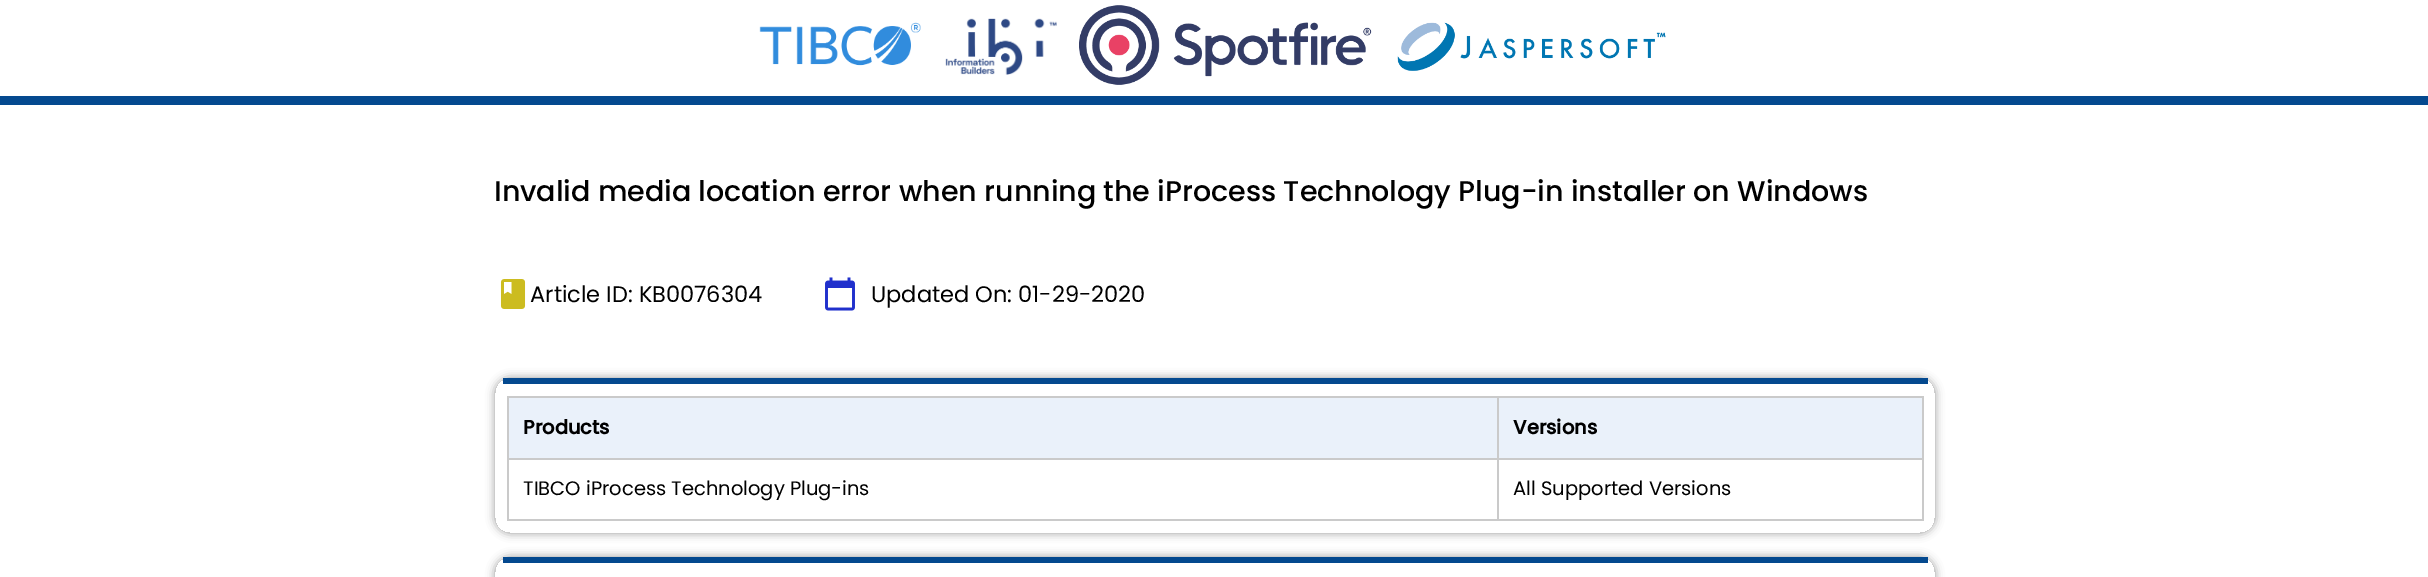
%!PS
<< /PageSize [2428 577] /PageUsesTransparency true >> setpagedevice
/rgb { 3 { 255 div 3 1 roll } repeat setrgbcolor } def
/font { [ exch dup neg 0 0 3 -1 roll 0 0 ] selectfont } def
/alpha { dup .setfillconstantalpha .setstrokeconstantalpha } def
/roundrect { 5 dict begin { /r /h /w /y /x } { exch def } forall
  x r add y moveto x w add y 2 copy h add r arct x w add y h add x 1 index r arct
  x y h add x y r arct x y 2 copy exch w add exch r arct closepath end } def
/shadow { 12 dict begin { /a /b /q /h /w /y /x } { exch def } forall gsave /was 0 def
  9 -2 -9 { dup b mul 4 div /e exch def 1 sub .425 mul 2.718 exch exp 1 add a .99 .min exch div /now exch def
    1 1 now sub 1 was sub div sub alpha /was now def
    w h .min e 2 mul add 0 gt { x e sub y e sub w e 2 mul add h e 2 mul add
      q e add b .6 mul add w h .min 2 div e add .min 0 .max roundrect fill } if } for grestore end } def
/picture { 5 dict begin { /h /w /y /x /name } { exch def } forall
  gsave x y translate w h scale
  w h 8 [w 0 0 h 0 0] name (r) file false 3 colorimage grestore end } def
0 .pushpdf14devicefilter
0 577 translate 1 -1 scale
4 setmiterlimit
255 255 255 rgb
0 0 2428 577 rectfill
(img/1.rgb) 0 5 2428 100 picture
(img/2.rgb) 500 279 26 30 picture
(img/3.rgb) 825 277 30 34 picture
gsave
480 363 moveto 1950 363 lineto 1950 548 lineto 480 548 lineto closepath 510 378 moveto 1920 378 lineto 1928.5 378 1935 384.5 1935 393 curveto 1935 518 lineto 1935 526.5 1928.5 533 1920 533 curveto 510 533 lineto 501.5 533 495 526.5 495 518 curveto 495 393 lineto 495 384.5 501.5 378 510 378 curveto closepath eoclip newpath
0 0 0 rgb
495 378 1440 155 15 4.5 0.4 shadow
grestore
[
  [503 378 1425 6 4 73 143]
  [509 398 1413 60 234 241 250]
  [1497 396 426 2 202 202 202]
  [1497 458 426 2 202 202 202]
  [1922 458 2 63 202 202 202]
  [1497 519 426 2 202 202 202]
  [1497 458 2 63 202 202 202]
  [507 458 992 2 202 202 202]
  [1497 396 2 63 202 202 202]
  [507 396 992 2 202 202 202]
  [507 519 992 2 202 202 202]
  [507 458 2 63 202 202 202]
  [507 396 2 63 202 202 202]
  [1922 396 2 63 202 202 202]
] { aload pop rgb rectfill } forall
gsave
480 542 moveto 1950 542 lineto 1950 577 lineto 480 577 lineto closepath 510 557 moveto 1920 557 lineto 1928.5 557 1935 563.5 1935 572 curveto 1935 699 lineto 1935 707.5 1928.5 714 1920 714 curveto 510 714 lineto 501.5 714 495 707.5 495 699 curveto 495 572 lineto 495 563.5 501.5 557 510 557 curveto closepath eoclip newpath
0 0 0 rgb
495 557 1440 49 15 4.5 0.4 shadow
grestore
4 73 143 rgb
503 557 1425 6 rectfill
/Poppins-Medium 28.5 font
0 0 0 rgb
494 201 moveto (Invalid media location error when running the iProcess Technology Plug-in installer on Windows) show
/Poppins-Regular 22.5 font
530 302 moveto (Article ID: KB0076304) show
871 302 moveto (Updated On: 01-29-2020) show
/Poppins-Bold 19.5 font
523 434 moveto (Products) show
1513 434 moveto (Versions) show
/Poppins-Regular 19.5 font
523 495 moveto (TIBCO iProcess Technology Plug-ins) show
1513 495 moveto (All Supported Versions) show
.poppdf14devicefilter showpage
